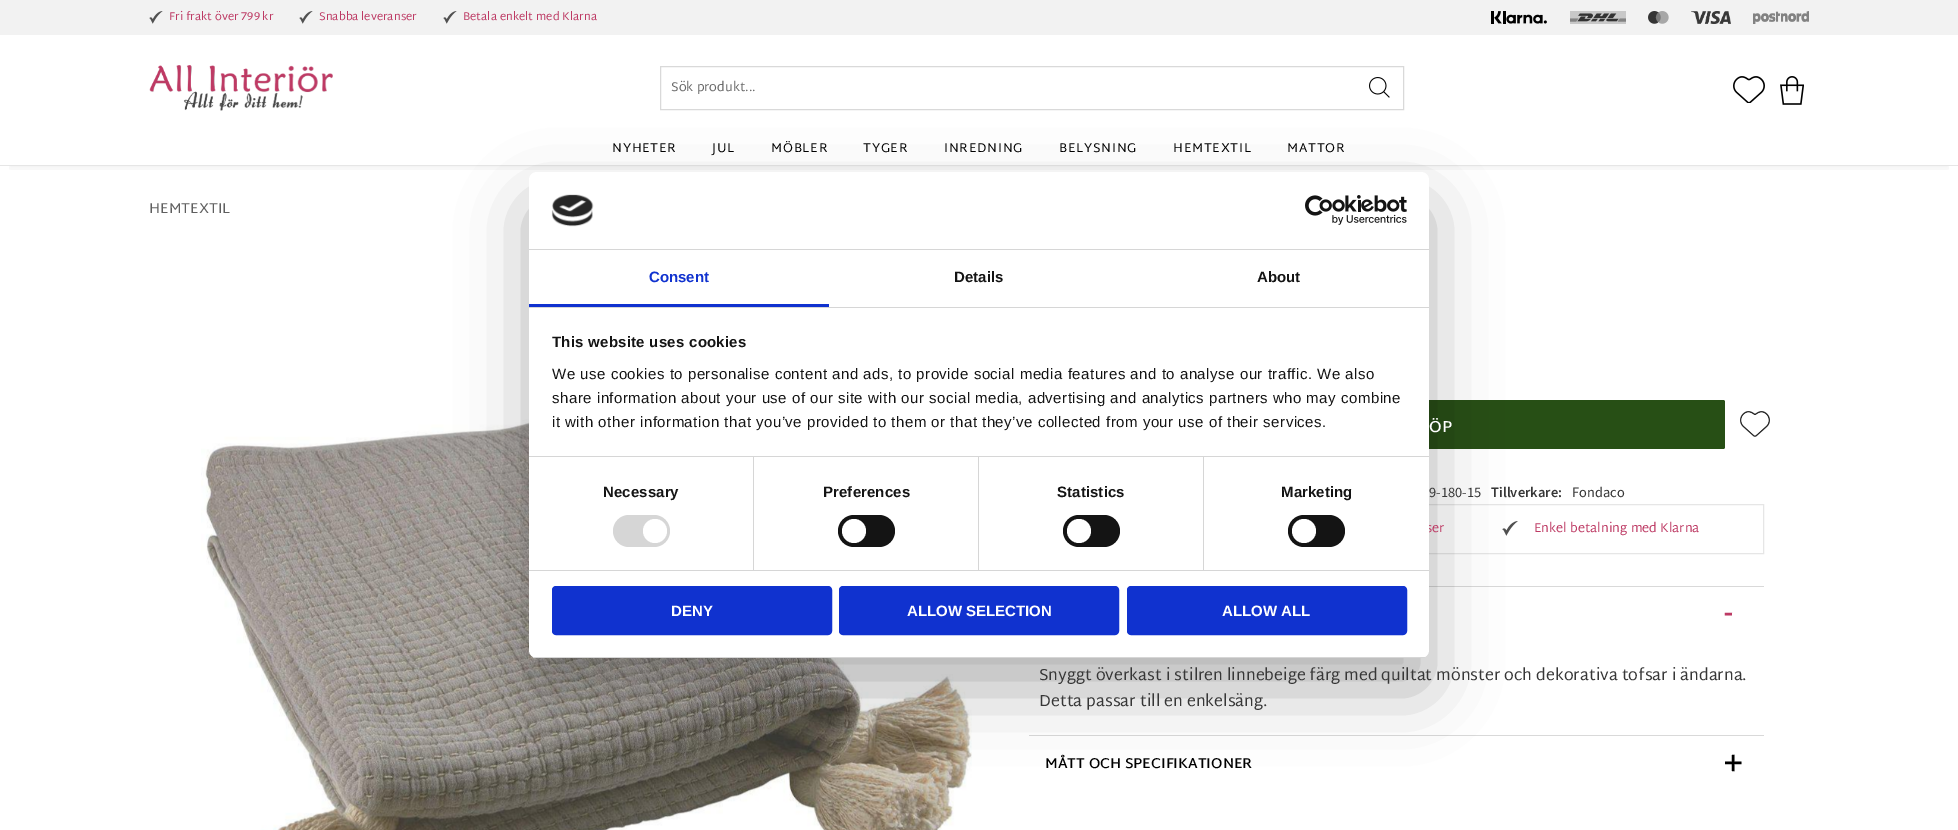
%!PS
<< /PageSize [1958 830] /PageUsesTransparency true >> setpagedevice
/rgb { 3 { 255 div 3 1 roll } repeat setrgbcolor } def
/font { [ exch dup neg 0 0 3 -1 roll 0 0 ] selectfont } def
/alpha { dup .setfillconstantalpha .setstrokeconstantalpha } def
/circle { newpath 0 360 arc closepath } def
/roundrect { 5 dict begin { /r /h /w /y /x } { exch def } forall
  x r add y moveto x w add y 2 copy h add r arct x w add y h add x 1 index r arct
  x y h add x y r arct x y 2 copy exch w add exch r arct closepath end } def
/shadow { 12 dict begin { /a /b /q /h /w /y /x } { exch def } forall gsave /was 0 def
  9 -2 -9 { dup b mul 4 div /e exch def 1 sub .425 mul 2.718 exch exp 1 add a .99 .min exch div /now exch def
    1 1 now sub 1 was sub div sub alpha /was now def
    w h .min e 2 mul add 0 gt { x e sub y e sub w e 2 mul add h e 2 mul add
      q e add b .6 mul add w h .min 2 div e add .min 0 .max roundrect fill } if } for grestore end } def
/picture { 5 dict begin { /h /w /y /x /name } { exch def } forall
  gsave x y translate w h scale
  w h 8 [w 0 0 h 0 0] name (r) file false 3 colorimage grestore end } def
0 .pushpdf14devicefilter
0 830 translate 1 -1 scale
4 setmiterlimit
255 255 255 rgb
0 0 1958 830 rectfill
gsave
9 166 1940 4 rectclip
33 35 38 rgb
10 20 1938 146 0 5 0.1 shadow
grestore
230 230 230 rgb
0 165 1958 1 rectfill
242 242 242 rgb
0 0 1958 35 rectfill
(img/1.rgb) 149 11 14 13 picture
(img/1.rgb) 299 11 14 13 picture
(img/1.rgb) 443 11 14 13 picture
(img/2.rgb) 1491 11 56 13 picture
(img/3.rgb) 1570 11 56 13 picture
(img/4.rgb) 1648 11 21 13 picture
(img/5.rgb) 1691 11 40 13 picture
(img/6.rgb) 1753 11 56 13 picture
(img/7.rgb) 149 65 184 46 picture
217 217 217 rgb
660.5 66.5 743 43 rectstroke
(img/8.rgb) 1369 77 21 21 picture
(img/9.rgb) 1733 76 32 27 picture
(img/10.rgb) 1780 76 24 29 picture
(img/11.rgb) 201 413 771 417 picture
39 79 21 rgb
1121 400 604 49 2 roundrect fill
(img/12.rgb) 1740 411 30 26 picture
230 230 230 rgb
1029.5 504.5 734 49 rectstroke
(img/13.rgb) 1502 521 16 15 picture
217 217 217 rgb
1429 586 335 1 rectfill
1029 735 735 1 rectfill
0 0 0 rgb
529 204 900 486 8 34 0.3 shadow
/MartelSans-Regular 11.25 font
189 58 100 rgb
[
  [(Fri frakt över 799 kr) 169 20]
  [(Snabba leveranser) 319 20]
  [(Betala enkelt med Klarna) 463 20]
] { aload pop moveto show } forall
/MartelSans-Regular 12.75 font
102 102 102 rgb
671 91 moveto (Sök produkt...) show
0 0 0 rgb
612 152 moveto 0.75 0 (NYHETER) ashow
712 152 moveto 0.75 0 (JUL) ashow
771 152 moveto 0.75 0 (MÖBLER) ashow
863 152 moveto 0.75 0 (TYGER) ashow
944 152 moveto 0.75 0 (INREDNING) ashow
1059 152 moveto 0.75 0 (BELYSNING) ashow
1173 152 moveto 0.75 0 (HEMTEXTIL) ashow
1287 152 moveto 0.75 0 (MATTOR) ashow
/MartelSans-Regular 14.4 font
95 95 95 rgb
149 213 moveto (HEMTEXTIL) show
/MartelSans-SemiBold 16 font
255 255 255 rgb
1429 432 moveto (ÖP) show
/SourceSansPro-Regular 14.4 font
55 55 55 rgb
1429 497 moveto (9-180-15) show
/SourceSansPro-SemiBold 14.4 font
1491 497 moveto (Tillverkare:) show
/SourceSansPro-Regular 14.4 font
1572 497 moveto (Fondaco) show
/MartelSans-Regular 12.75 font
189 58 100 rgb
1426 532 moveto (ser) show
1534 532 moveto (Enkel betalning med Klarna) show
/MartelSans-SemiBold 32 font
1724 623 moveto (-) show
/MartelSans-Regular 16 font
55 55 55 rgb
1039 680 moveto (Snyggt överkast i stilren linnebeige färg med quiltat mönster och dekorativa tofsar i ändarna.) show
1039 706 moveto (Detta passar till en enkelsäng.) show
/MartelSans-SemiBold 14.4 font
0 0 0 rgb
1045 768 moveto (MÅTT OCH SPECIFIKATIONER) show
/MartelSans-SemiBold 32 font
1724 772 moveto (+) show
255 255 255 rgb
529 172 900 486 8 roundrect fill
214 214 214 rgb
529 249 900 1 rectfill
(img/14.rgb) 551 194 43 33 picture
(img/15.rgb) 1305 195 102 30 picture
529 307 900 1 rectfill
16 50 207 rgb
529 304 300 3 rectfill
/LiberationSans-Bold 15 font
649 282 moveto (Consent) show
20 20 20 rgb
954 282 moveto (Details) show
1257 282 moveto (About) show
214 214 214 rgb
529 456 900 1 rectfill
20 20 20 rgb
552 347 moveto 0.25 0 (This website uses cookies) ashow
/LiberationSans-Regular 15 font
552 379 moveto 0.5 0 (We use cookies to personalise content and ads, to provide social media features and to analyse our traffic. We also) ashow
552 403 moveto 0.5 0 (share information about your use of our site with our social media, advertising and analytics partners who may combine) ashow
552 427 moveto 0.5 0 (it with other information that you’ve provided to them or that they’ve collected from your use of their services.) ashow
214 214 214 rgb
529 570 900 1 rectfill
753 457 1 113 rectfill
/LiberationSans-Bold 15 font
20 20 20 rgb
603 497 moveto 0.1 0 (Necessary) ashow
214 214 214 rgb
613 515 57 32 16 roundrect fill
255 255 255 rgb
655 531 12 circle fill
214 214 214 rgb
978 457 1 113 rectfill
20 20 20 rgb
823 497 moveto 0.1 0 (Preferences) ashow
838 515 57 32 16 roundrect fill
255 255 255 rgb
854 531 12 circle fill
214 214 214 rgb
1203 457 1 113 rectfill
20 20 20 rgb
1057 497 moveto 0.1 0 (Statistics) ashow
1063 515 57 32 16 roundrect fill
255 255 255 rgb
1079 531 12 circle fill
20 20 20 rgb
1281 497 moveto 0.1 0 (Marketing) ashow
1288 515 57 32 16 roundrect fill
255 255 255 rgb
1304 531 12 circle fill
gsave
529 172 900 486 8 roundrect clip newpath
214 214 214 rgb
529 657 900 1 rectfill
grestore
16 50 207 rgb
553 587 278 47 3 roundrect gsave fill grestore
2 setlinewidth
stroke
255 255 255 rgb
671 616 moveto (DENY) show
16 50 207 rgb
840 587 278 47 3 roundrect gsave fill grestore
stroke
255 255 255 rgb
907 616 moveto (ALLOW SELECTION) show
16 50 207 rgb
1128 587 278 47 3 roundrect gsave fill grestore
stroke
255 255 255 rgb
1222 616 moveto (ALLOW ALL) show
.poppdf14devicefilter showpage
